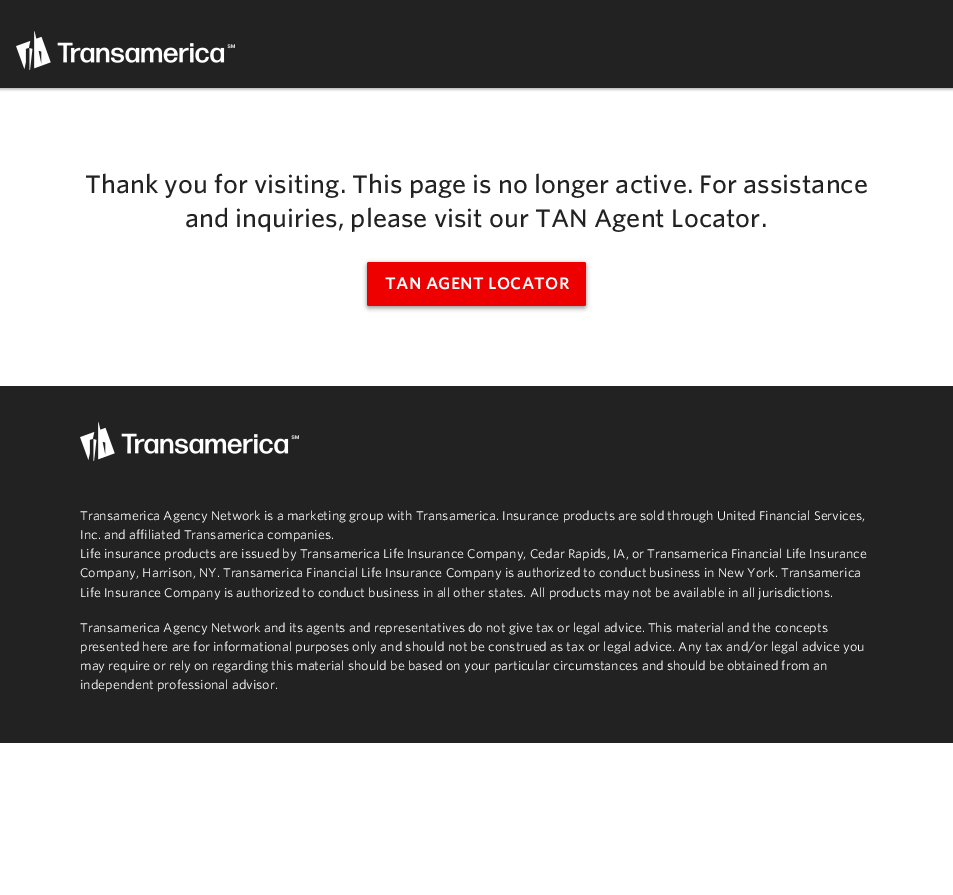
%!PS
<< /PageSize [953 895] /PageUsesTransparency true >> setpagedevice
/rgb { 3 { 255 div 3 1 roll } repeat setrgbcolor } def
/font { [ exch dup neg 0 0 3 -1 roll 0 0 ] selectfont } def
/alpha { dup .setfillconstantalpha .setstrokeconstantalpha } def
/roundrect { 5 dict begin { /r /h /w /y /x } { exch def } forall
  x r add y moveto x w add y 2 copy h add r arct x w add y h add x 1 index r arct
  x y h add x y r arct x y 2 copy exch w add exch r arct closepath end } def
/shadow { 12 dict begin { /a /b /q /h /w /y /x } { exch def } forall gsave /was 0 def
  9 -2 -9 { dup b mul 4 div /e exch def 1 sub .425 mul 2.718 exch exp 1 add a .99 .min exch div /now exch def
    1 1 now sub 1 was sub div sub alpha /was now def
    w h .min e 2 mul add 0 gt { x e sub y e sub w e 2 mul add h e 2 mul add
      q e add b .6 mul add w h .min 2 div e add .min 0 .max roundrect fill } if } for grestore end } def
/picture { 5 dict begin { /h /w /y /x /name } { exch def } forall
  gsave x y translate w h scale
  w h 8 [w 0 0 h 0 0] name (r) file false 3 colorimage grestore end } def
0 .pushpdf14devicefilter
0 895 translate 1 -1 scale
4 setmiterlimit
255 255 255 rgb
0 0 953 895 rectfill
34 34 34 rgb
0 1 953 88 0 1.5 0.2 shadow
0 2 953 88 0 1 0.12 shadow
0 0 953 88 0 1 0.14 shadow
0 0 953 88 rectfill
(img/1.rgb) 16 31 219 39 picture
0 0 0 rgb
367 264 219 44 2 2 0.14 shadow
367 265 219 44 2 2 0.12 shadow
367 263 219 44 2 2.5 0.2 shadow
238 0 0 rgb
367 262 219 44 2 roundrect fill
34 34 34 rgb
0 386 953 357 rectfill
(img/1.rgb) 80 422 219 39 picture
/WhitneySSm-Medium 24 font
85 193 moveto (Thank you for visiting. This page is no longer active. For assistance) show
185 227 moveto (and inquiries, please visit our TAN Agent Locator.) show
/WhitneySSm-SemiBold 16 font
255 255 255 rgb
385 289 moveto 0.25 0 (TAN AGENT LOCATOR) ashow
/WhitneySSm-Regular 12 font
[
  [(Transamerica Agency Network is a marketing group with Transamerica. Insurance products are sold through United Financial Services,) 80 520]
  [(Inc. and affiliated Transamerica companies.) 80 539]
  [(Life insurance products are issued by Transamerica Life Insurance Company, Cedar Rapids, IA, or Transamerica Financial Life Insurance) 80 558]
  [(Company, Harrison, NY. Transamerica Financial Life Insurance Company is authorized to conduct business in New York. Transamerica) 80 577]
  [(Life Insurance Company is authorized to conduct business in all other states. All products may not be available in all jurisdictions.) 80 597]
  [(Transamerica Agency Network and its agents and representatives do not give tax or legal advice. This material and the concepts) 80 632]
  [(presented here are for informational purposes only and should not be construed as tax or legal advice. Any tax and/or legal advice you) 80 651]
  [(may require or rely on regarding this material should be based on your particular circumstances and should be obtained from an) 80 670]
  [(independent professional advisor.) 80 689]
] { aload pop moveto show } forall
.poppdf14devicefilter showpage
